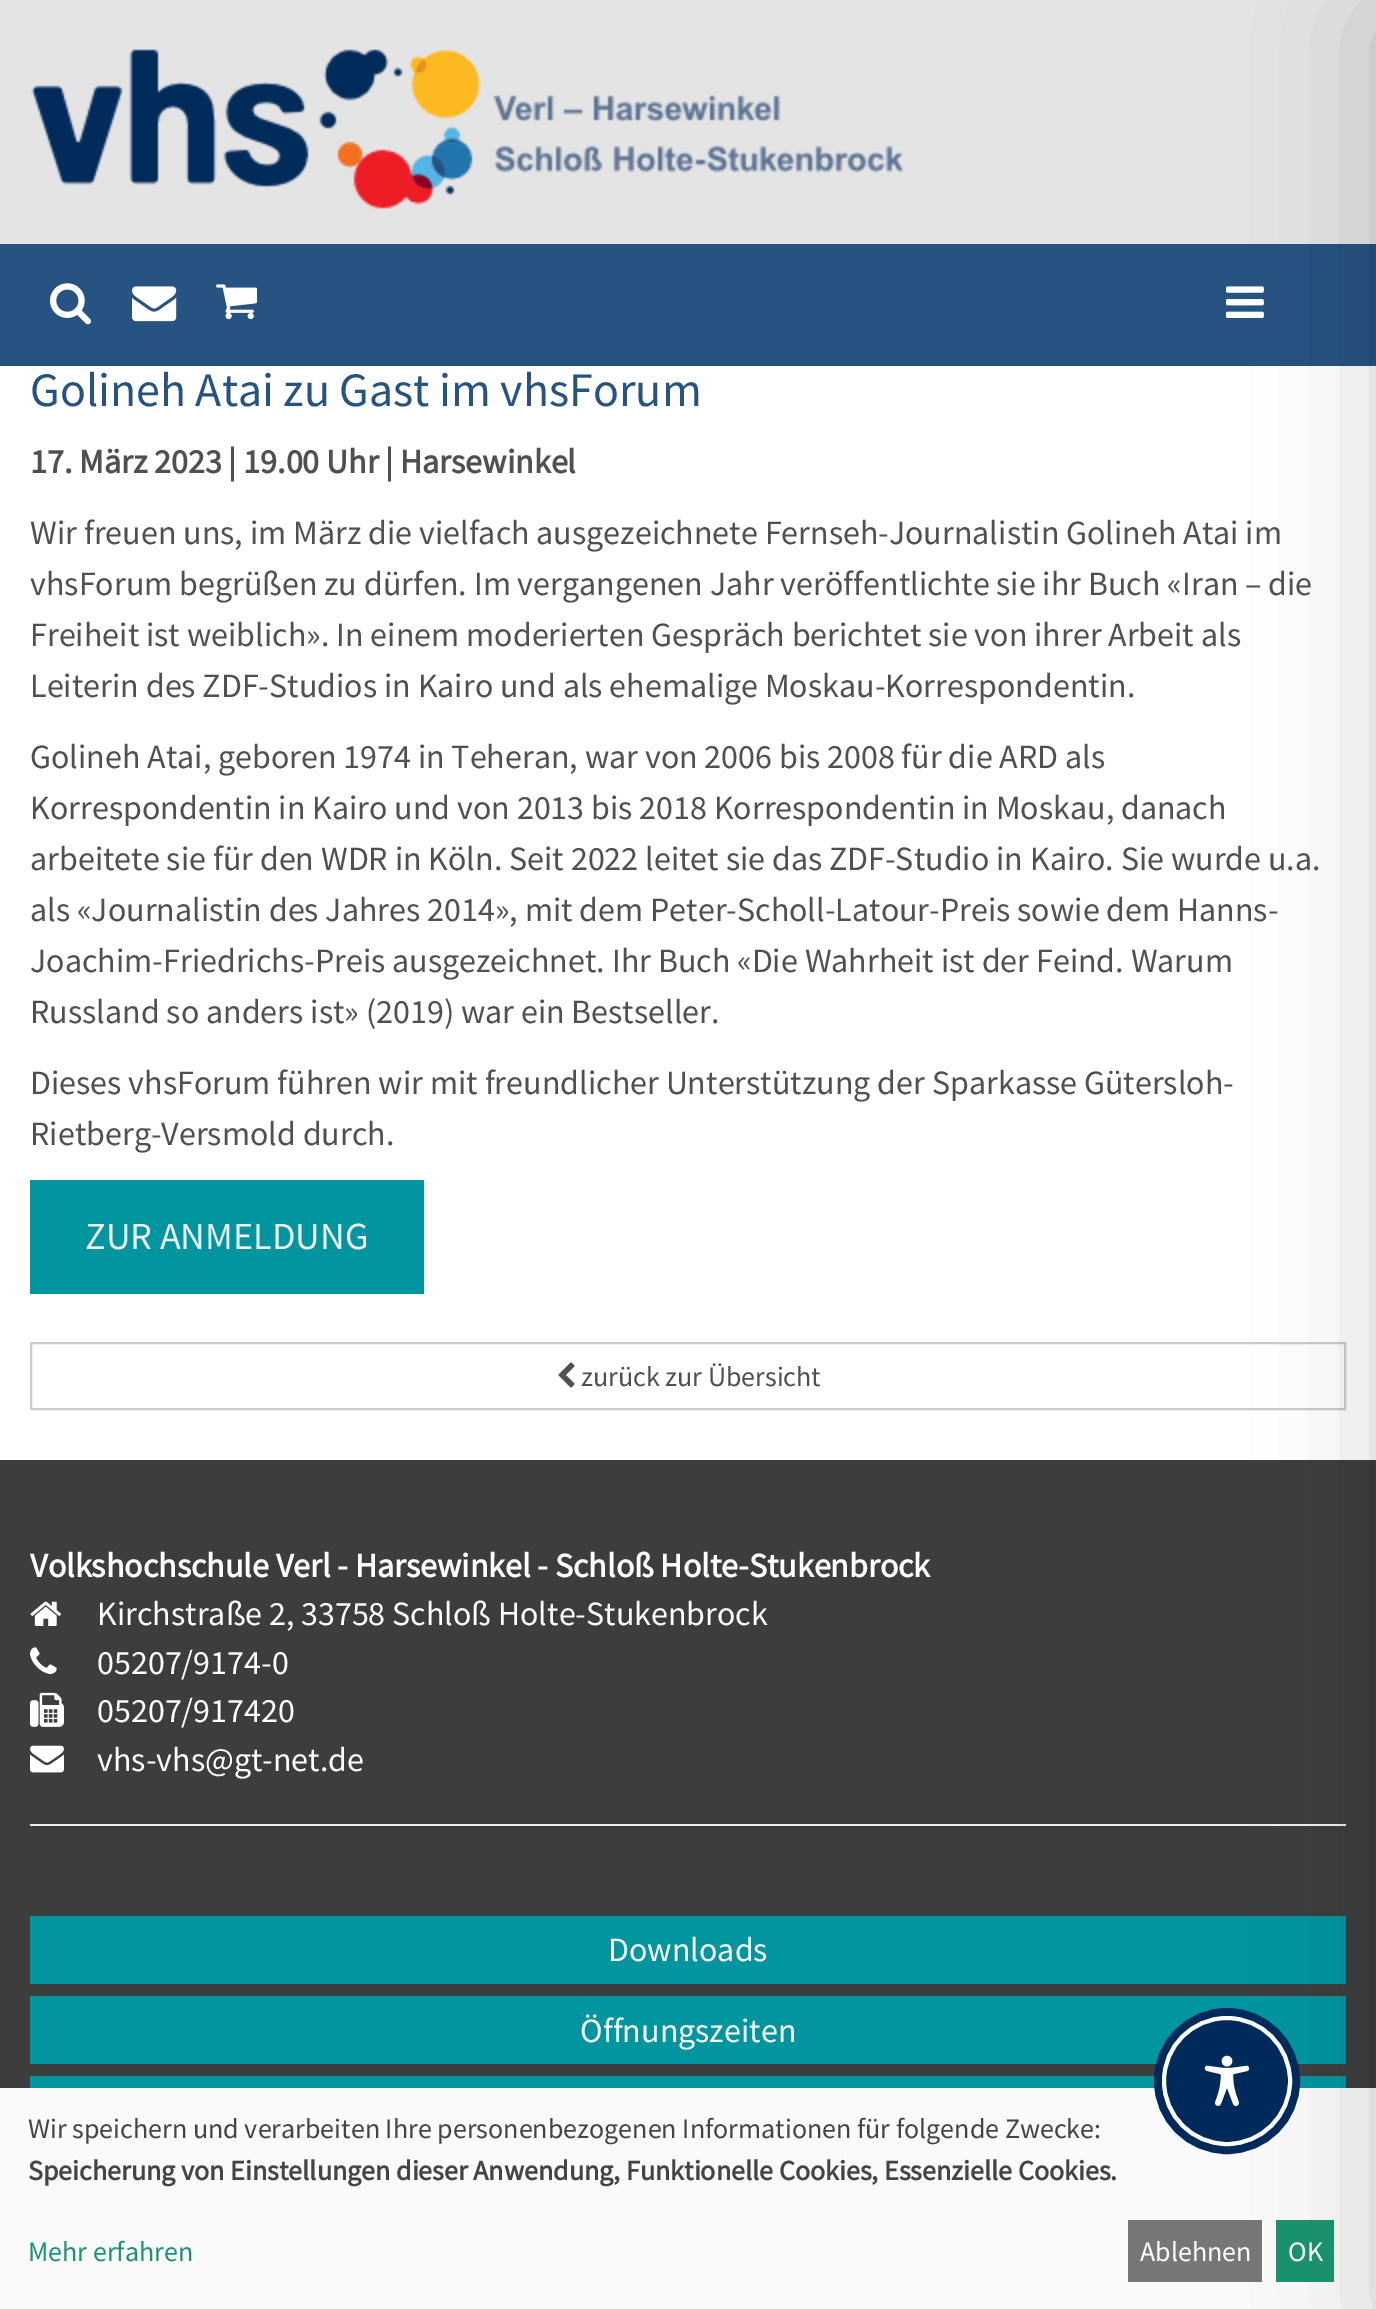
%!PS
<< /PageSize [1376 2309] /PageUsesTransparency true >> setpagedevice
/rgb { 3 { 255 div 3 1 roll } repeat setrgbcolor } def
/font { [ exch dup neg 0 0 3 -1 roll 0 0 ] selectfont } def
/alpha { dup .setfillconstantalpha .setstrokeconstantalpha } def
/circle { newpath 0 360 arc closepath } def
/roundrect { 5 dict begin { /r /h /w /y /x } { exch def } forall
  x r add y moveto x w add y 2 copy h add r arct x w add y h add x 1 index r arct
  x y h add x y r arct x y 2 copy exch w add exch r arct closepath end } def
/shadow { 12 dict begin { /a /b /q /h /w /y /x } { exch def } forall gsave /was 0 def
  9 -2 -9 { dup b mul 4 div /e exch def 1 sub .425 mul 2.718 exch exp 1 add a .99 .min exch div /now exch def
    1 1 now sub 1 was sub div sub alpha /was now def
    w h .min e 2 mul add 0 gt { x e sub y e sub w e 2 mul add h e 2 mul add
      q e add b .6 mul add w h .min 2 div e add .min 0 .max roundrect fill } if } for grestore end } def
/picture { 5 dict begin { /h /w /y /x /name } { exch def } forall
  gsave x y translate w h scale
  w h 8 [w 0 0 h 0 0] name (r) file false 3 colorimage grestore end } def
0 .pushpdf14devicefilter
0 2309 translate 1 -1 scale
4 setmiterlimit
255 255 255 rgb
0 0 1376 2309 rectfill
228 228 228 rgb
0 0 1376 244 rectfill
(img/1.rgb) 31 49 874 160 picture
38 83 130 rgb
0 244 1376 122 rectfill
(img/2.rgb) 50 283 41 42 picture
(img/3.rgb) 132 286 45 36 picture
(img/4.rgb) 216 284 42 36 picture
(img/5.rgb) 1226 286 38 32 picture
204 204 204 rgb
2 setlinewidth
31 1343 1314 66 rectstroke
[
  [0 1460 1376 628 61 61 61]
  [30 1824 1316 2 238 238 238]
  [30 1916 1316 68 1 149 159]
  [30 1996 1316 68 1 149 159]
  [30 2076 1316 12 1 149 159]
  [0 2088 1376 221 250 250 250]
] { aload pop rgb rectfill } forall
0 42 92 rgb
8 setlinewidth
1227 2081 69 circle stroke
1227 2081 63 circle gsave fill grestore
255 255 255 rgb
4 setlinewidth
stroke
(img/11.rgb) 1204 2055 46 52 picture
119 119 119 rgb
1128 2220 134 62 rectfill
26 147 111 rgb
1276 2220 58 62 rectfill
0 0 0 rgb
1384 20 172 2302 0 60 0.2 shadow
1 149 159 rgb
30 1180 394 114 rectfill
(img/6.rgb) 558 1362 17 26 picture
(img/7.rgb) 30 1601 31 25 picture
(img/8.rgb) 30 1647 27 27 picture
(img/9.rgb) 30 1692 34 35 picture
(img/10.rgb) 30 1745 34 28 picture
/SourceSansPro-Regular 48 font
38 83 130 rgb
30 406 moveto (Golineh Atai zu Gast im vhsForum) show
/SourceSansPro-Bold 34 font
80 80 80 rgb
30 473 moveto (17. März 2023 | 19.00 Uhr | Harsewinkel) show
/SourceSansPro-Regular 34 font
[
  [(Wir freuen uns, im März die vielfach ausgezeichnete Fernseh-Journalistin Golineh Atai im) 30 544]
  [(vhsForum begrüßen zu dürfen. Im vergangenen Jahr veröffentlichte sie ihr Buch «Iran – die) 30 595]
  [(Freiheit ist weiblich». In einem moderierten Gespräch berichtet sie von ihrer Arbeit als) 30 646]
  [(Leiterin des ZDF-Studios in Kairo und als ehemalige Moskau-Korrespondentin.) 30 697]
  [(Golineh Atai, geboren 1974 in Teheran, war von 2006 bis 2008 für die ARD als) 30 768]
  [(Korrespondentin in Kairo und von 2013 bis 2018 Korrespondentin in Moskau, danach) 30 819]
  [(arbeitete sie für den WDR in Köln. Seit 2022 leitet sie das ZDF-Studio in Kairo. Sie wurde u.a.) 30 870]
  [(als «Journalistin des Jahres 2014», mit dem Peter-Scholl-Latour-Preis sowie dem Hanns-) 30 921]
  [(Joachim-Friedrichs-Preis ausgezeichnet. Ihr Buch «Die Wahrheit ist der Feind. Warum) 30 972]
  [(Russland so anders ist» \(2019\) war ein Bestseller.) 30 1023]
  [(Dieses vhsForum führen wir mit freundlicher Unterstützung der Sparkasse Gütersloh-) 30 1094]
  [(Rietberg-Versmold durch.) 30 1145]
] { aload pop moveto show } forall
/SourceSansPro-Regular 38.25 font
240 240 240 rgb
85 1249 moveto (ZUR ANMELDUNG) show
/SourceSansPro-Regular 28 font
80 80 80 rgb
581 1386 moveto (zurück zur Übersicht) show
/SourceSansPro-Bold 34 font
255 255 255 rgb
30 1577 moveto (Volkshochschule Verl - Harsewinkel - Schloß Holte-Stukenbrock) show
/SourceSansPro-Regular 34 font
[
  [(Kirchstraße 2, 33758 Schloß Holte-Stukenbrock) 97 1625]
  [(05207/9174-0) 97 1674]
  [(05207/917420) 97 1722]
  [(vhs-vhs@gt-net.de) 97 1771]
  [(Downloads) 608 1961]
  [(Öffnungszeiten) 580 2042]
] { aload pop moveto show } forall
/SourceSansPro-Regular 28 font
68 68 68 rgb
28 2138 moveto (Wir speichern und verarbeiten Ihre personenbezogenen Informationen für folgende Zwecke:) show
/SourceSansPro-Bold 28 font
28 2180 moveto (Speicherung von Einstellungen dieser Anwendung, Funktionelle Cookies, Essenzielle Cookies.) show
/SourceSansPro-Regular 28 font
26 147 111 rgb
28 2261 moveto (Mehr erfahren) show
255 255 255 rgb
1140 2261 moveto (Ablehnen) show
1288 2261 moveto (OK) show
.poppdf14devicefilter showpage
